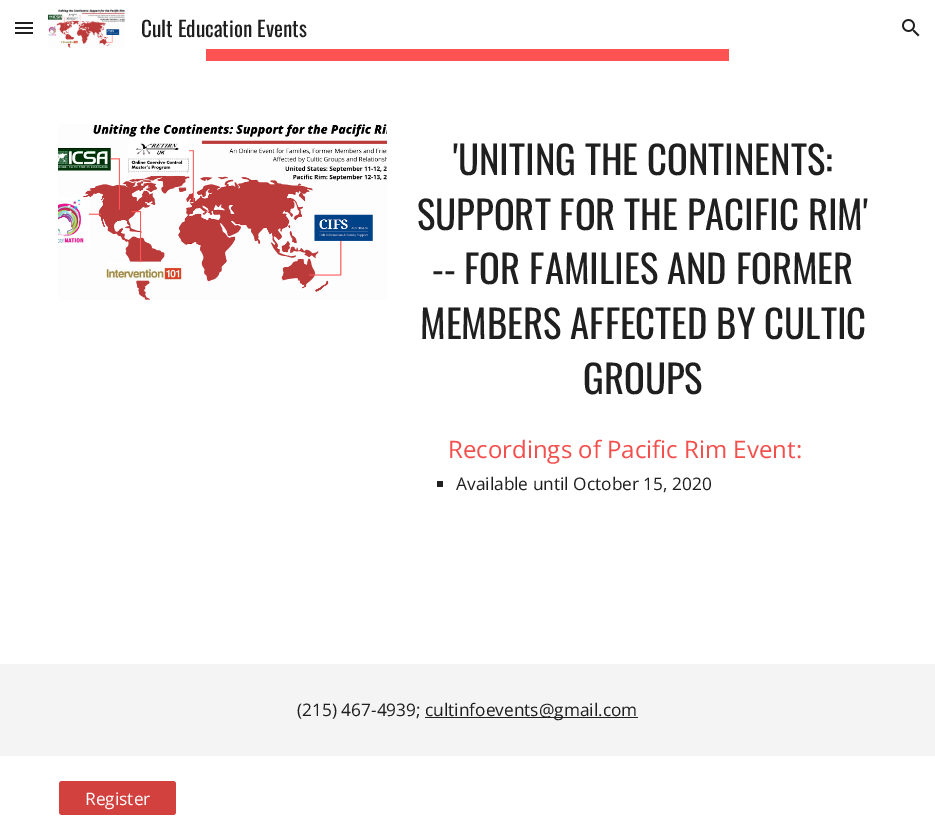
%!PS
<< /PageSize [935 838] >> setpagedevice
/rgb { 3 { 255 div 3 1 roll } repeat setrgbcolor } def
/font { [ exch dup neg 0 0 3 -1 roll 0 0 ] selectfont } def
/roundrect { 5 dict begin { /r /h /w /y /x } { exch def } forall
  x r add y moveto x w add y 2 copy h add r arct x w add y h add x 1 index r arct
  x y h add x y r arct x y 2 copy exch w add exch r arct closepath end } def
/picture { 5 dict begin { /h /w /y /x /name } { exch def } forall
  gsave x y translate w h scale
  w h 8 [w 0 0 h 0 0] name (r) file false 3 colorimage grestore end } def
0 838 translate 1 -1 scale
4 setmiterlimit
255 255 255 rgb
0 0 935 838 rectfill
[
  [15 22 18 2 31 31 31]
  [15 27 18 2 31 31 31]
  [15 32 18 2 31 31 31]
] { aload pop rgb rectfill } forall
(img/1.rgb) 47 9 78 39 picture
(img/2.rgb) 902 19 18 18 picture
255 82 82 rgb
206 49 523 12 rectfill
(img/3.rgb) 58 124 329 176 picture
[
  [437 481 6 6 33 33 33]
  [0 664 935 92 244 244 244]
  [425 717 213 1 33 33 33]
] { aload pop rgb rectfill } forall
211 65 63 rgb
59 781 117 34 3 roundrect fill
/Oswald-Regular 21.25 font
31 31 31 rgb
141 37 moveto (Cult Education Events) show
/Oswald-Regular 38.75 font
[
  [('UNITING THE CONTINENTS:) 453 175]
  [(SUPPORT FOR THE PACIFIC RIM') 417 230]
  [(-- FOR FAMILIES AND FORMER) 432 284]
  [(MEMBERS AFFECTED BY CULTIC) 420 339]
  [(GROUPS) 583 394]
] { aload pop moveto show } forall
/OpenSans-Regular 24 font
243 79 76 rgb
448 458 moveto (Recordings of Pacific Rim Event:) show
/OpenSans-Regular 17.3 font
31 31 31 rgb
[
  [(Available until October 15, 2020) 456 490]
  [(\(215\) 467-4939;) 297 716]
  [(cultinfoevents@gmail.com) 425 716]
] { aload pop moveto show } forall
255 255 255 rgb
85 805 moveto (Register) show
showpage
